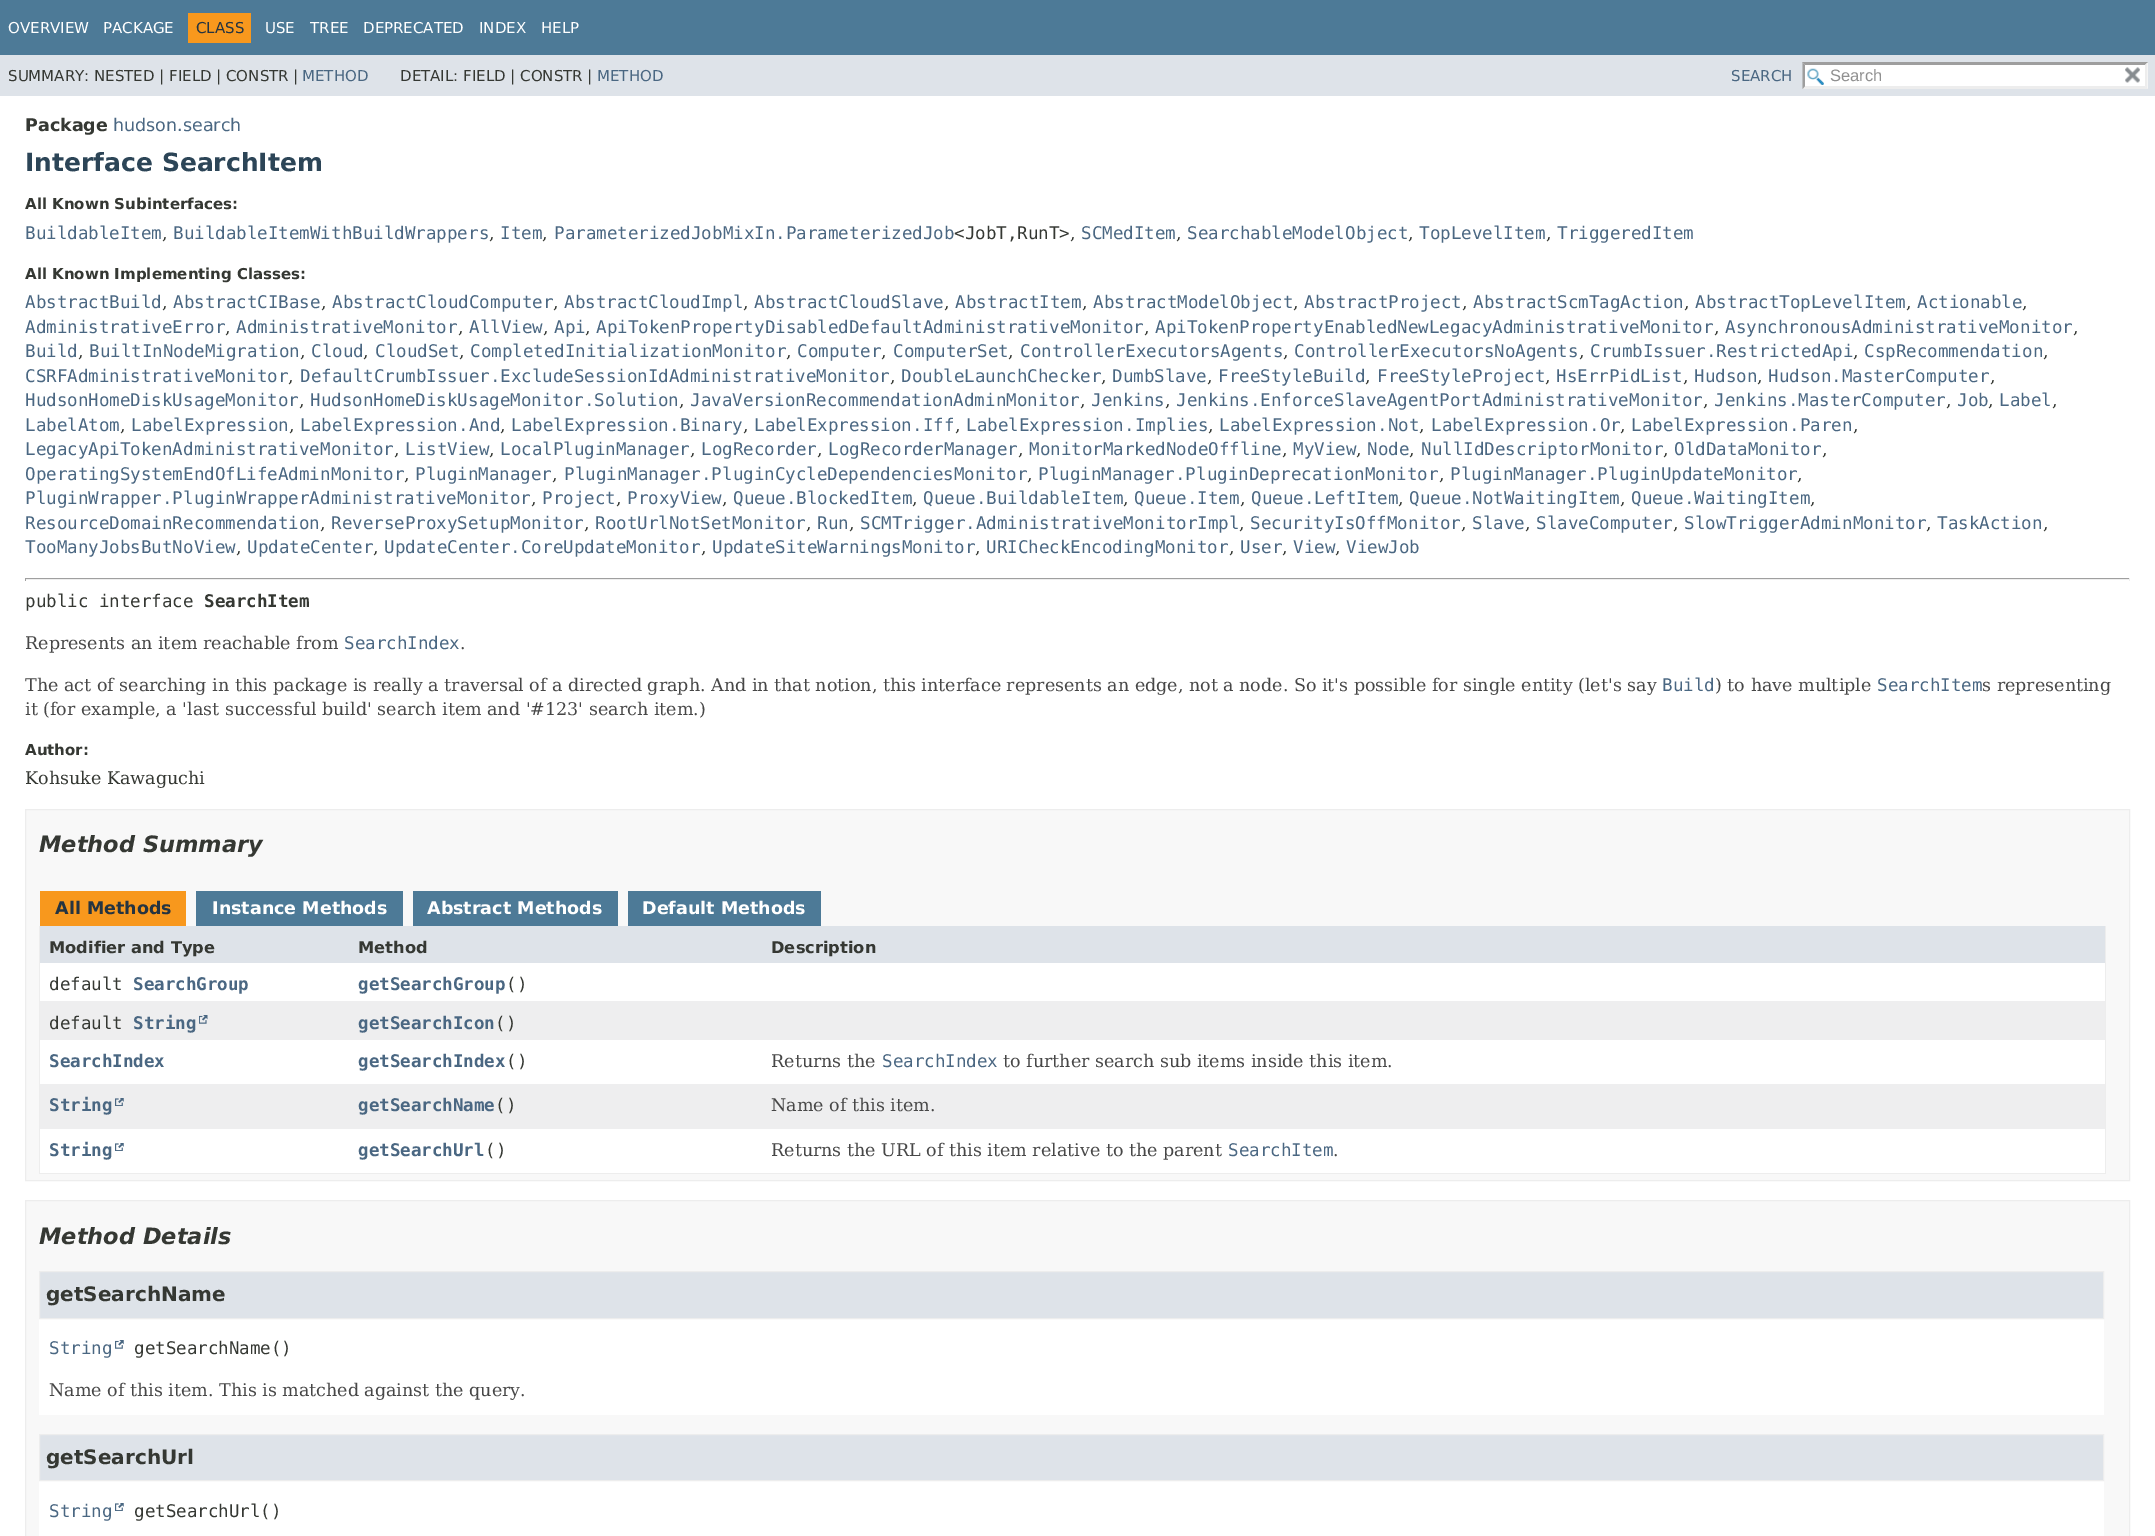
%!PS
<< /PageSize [2155 1536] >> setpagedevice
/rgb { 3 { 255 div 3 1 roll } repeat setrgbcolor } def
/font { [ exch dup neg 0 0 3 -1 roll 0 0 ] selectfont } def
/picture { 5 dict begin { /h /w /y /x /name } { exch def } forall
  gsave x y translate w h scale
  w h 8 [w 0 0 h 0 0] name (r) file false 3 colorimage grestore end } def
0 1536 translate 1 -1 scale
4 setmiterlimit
255 255 255 rgb
0 0 2155 1536 rectfill
[
  [0 0 2155 55 77 122 151]
  [188 13 63 30 248 152 29]
  [0 55 2155 41 222 227 233]
  [1803 63 345 26 255 255 255]
] { aload pop rgb rectfill } forall
(img/1.rgb) 1807 68 17 17 picture
158 158 158 rgb
1802 62 moveto 2148 62 lineto 2145 65 lineto 1805 65 lineto closepath fill
237 237 237 rgb
2147.5 62.5 moveto 2147.5 89 lineto 2145 86 lineto 2145 65 lineto closepath fill
2148 89 moveto 1802 89 lineto 1805 86 lineto 2145 86 lineto closepath fill
158 158 158 rgb
1802.5 89 moveto 1802.5 62.5 lineto 1805 65 lineto 1805 86 lineto closepath fill
(img/2.rgb) 2125 67 15 16 picture
[
  [25 578 2105 1 159 159 159]
  [2129 578 1 3 238 238 238]
  [25 579 2105 1 238 238 238]
  [25 578 1 3 159 159 159]
] { aload pop rgb rectfill } forall
248 248 248 rgb
25.5 809.5 moveto 2129.5 809.5 lineto 2129.5 1180.5 lineto 25.5 1180.5 lineto closepath gsave fill grestore
237 237 237 rgb
stroke
[
  [40 891 146 35 248 152 29]
  [196 891 207 35 77 122 151]
  [413 891 205 35 77 122 151]
  [628 891 193 35 77 122 151]
  [2105 926 1 248 237 237 237]
  [39 1173 2067 1 237 237 237]
  [39 926 1 248 237 237 237]
  [40 926 2065 37 222 227 233]
  [40 963 2065 38 255 255 255]
  [40 1001 2065 39 238 238 239]
] { aload pop rgb rectfill } forall
(img/3.rgb) 199 1015 9 9 picture
255 255 255 rgb
40 1040 2065 44 rectfill
238 238 239 rgb
40 1084 2065 45 rectfill
(img/4.rgb) 115 1098 9 8 picture
255 255 255 rgb
40 1129 2065 44 rectfill
(img/5.rgb) 115 1143 9 8 picture
248 248 248 rgb
25.5 1200.5 moveto 2129.5 1200.5 lineto 2129.5 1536.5 lineto 25.5 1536.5 lineto closepath gsave fill grestore
237 237 237 rgb
stroke
255 255 255 rgb
39 1319 2065 96 rectfill
222 227 233 rgb
39.5 1271.5 moveto 2103.5 1271.5 lineto 2103.5 1318.5 lineto 39.5 1318.5 lineto closepath gsave fill grestore
237 237 237 rgb
stroke
(img/6.rgb) 115 1340 9 9 picture
255 255 255 rgb
39 1481 2065 55 rectfill
222 227 233 rgb
39.5 1434.5 moveto 2103.5 1434.5 lineto 2103.5 1480.5 lineto 39.5 1480.5 lineto closepath gsave fill grestore
237 237 237 rgb
stroke
(img/5.rgb) 115 1503 9 8 picture
/DejaVuSans-Regular 15 font
255 255 255 rgb
8 33 moveto (OVERVIEW) show
103 33 moveto (PACKAGE) show
37 52 65 rgb
196 33 moveto (CLASS) show
255 255 255 rgb
[
  [(USE) 265 33]
  [(TREE) 310 33]
  [(DEPRECATED) 363 33]
  [(INDEX) 479 33]
  [(HELP) 541 33]
] { aload pop moveto show } forall
53 56 51 rgb
8 81 moveto (SUMMARY: NESTED | FIELD | CONSTR |) show
74 103 130 rgb
302 81 moveto (METHOD) show
53 56 51 rgb
400 81 moveto (DETAIL: FIELD | CONSTR |) show
74 103 130 rgb
597 81 moveto (METHOD) show
1731 81 moveto (SEARCH) show
/LiberationSans-Regular 16.5 font
144 144 144 rgb
1830 81 moveto (Search) show
/DejaVuSans-Bold 17.5 font
53 56 51 rgb
25 131 moveto (Package) show
/DejaVuSans-Regular 17.5 font
74 103 130 rgb
113 131 moveto (hudson.search) show
/DejaVuSans-Bold 25 font
44 69 87 rgb
25 171 moveto (Interface SearchItem) show
/DejaVuSans-Bold 15 font
53 56 51 rgb
25 209 moveto (All Known Subinterfaces:) show
/DejaVuSansMono-Regular 17.5 font
74 103 130 rgb
25 239 moveto (BuildableItem) show
/DejaVuSerif-Regular 17.5 font
53 56 51 rgb
162 239 moveto (,) show
/DejaVuSansMono-Regular 17.5 font
74 103 130 rgb
173 239 moveto (BuildableItemWithBuildWrappers) show
/DejaVuSerif-Regular 17.5 font
53 56 51 rgb
489 239 moveto (,) show
/DejaVuSansMono-Regular 17.5 font
74 103 130 rgb
500 239 moveto (Item) show
/DejaVuSerif-Regular 17.5 font
53 56 51 rgb
542 239 moveto (,) show
/DejaVuSansMono-Regular 17.5 font
74 103 130 rgb
554 239 moveto (ParameterizedJobMixIn.ParameterizedJob) show
53 56 51 rgb
954 239 moveto (<JobT,RunT>) show
/DejaVuSerif-Regular 17.5 font
1070 239 moveto (,) show
/DejaVuSansMono-Regular 17.5 font
74 103 130 rgb
1081 239 moveto (SCMedItem) show
/DejaVuSerif-Regular 17.5 font
53 56 51 rgb
1176 239 moveto (,) show
/DejaVuSansMono-Regular 17.5 font
74 103 130 rgb
1187 239 moveto (SearchableModelObject) show
/DejaVuSerif-Regular 17.5 font
53 56 51 rgb
1408 239 moveto (,) show
/DejaVuSansMono-Regular 17.5 font
74 103 130 rgb
1419 239 moveto (TopLevelItem) show
/DejaVuSerif-Regular 17.5 font
53 56 51 rgb
1546 239 moveto (,) show
/DejaVuSansMono-Regular 17.5 font
74 103 130 rgb
1557 239 moveto (TriggeredItem) show
/DejaVuSans-Bold 15 font
53 56 51 rgb
25 279 moveto (All Known Implementing Classes:) show
/DejaVuSansMono-Regular 17.5 font
74 103 130 rgb
25 308 moveto (AbstractBuild) show
/DejaVuSerif-Regular 17.5 font
53 56 51 rgb
162 308 moveto (,) show
/DejaVuSansMono-Regular 17.5 font
74 103 130 rgb
173 308 moveto (AbstractCIBase) show
/DejaVuSerif-Regular 17.5 font
53 56 51 rgb
321 308 moveto (,) show
/DejaVuSansMono-Regular 17.5 font
74 103 130 rgb
332 308 moveto (AbstractCloudComputer) show
/DejaVuSerif-Regular 17.5 font
53 56 51 rgb
553 308 moveto (,) show
/DejaVuSansMono-Regular 17.5 font
74 103 130 rgb
564 308 moveto (AbstractCloudImpl) show
/DejaVuSerif-Regular 17.5 font
53 56 51 rgb
743 308 moveto (,) show
/DejaVuSansMono-Regular 17.5 font
74 103 130 rgb
754 308 moveto (AbstractCloudSlave) show
/DejaVuSerif-Regular 17.5 font
53 56 51 rgb
944 308 moveto (,) show
/DejaVuSansMono-Regular 17.5 font
74 103 130 rgb
955 308 moveto (AbstractItem) show
/DejaVuSerif-Regular 17.5 font
53 56 51 rgb
1082 308 moveto (,) show
/DejaVuSansMono-Regular 17.5 font
74 103 130 rgb
1093 308 moveto (AbstractModelObject) show
/DejaVuSerif-Regular 17.5 font
53 56 51 rgb
1293 308 moveto (,) show
/DejaVuSansMono-Regular 17.5 font
74 103 130 rgb
1304 308 moveto (AbstractProject) show
/DejaVuSerif-Regular 17.5 font
53 56 51 rgb
1462 308 moveto (,) show
/DejaVuSansMono-Regular 17.5 font
74 103 130 rgb
1473 308 moveto (AbstractScmTagAction) show
/DejaVuSerif-Regular 17.5 font
53 56 51 rgb
1684 308 moveto (,) show
/DejaVuSansMono-Regular 17.5 font
74 103 130 rgb
1695 308 moveto (AbstractTopLevelItem) show
/DejaVuSerif-Regular 17.5 font
53 56 51 rgb
1906 308 moveto (,) show
/DejaVuSansMono-Regular 17.5 font
74 103 130 rgb
1917 308 moveto (Actionable) show
/DejaVuSerif-Regular 17.5 font
53 56 51 rgb
2022 308 moveto (,) show
/DejaVuSansMono-Regular 17.5 font
74 103 130 rgb
25 333 moveto (AdministrativeError) show
/DejaVuSerif-Regular 17.5 font
53 56 51 rgb
225 333 moveto (,) show
/DejaVuSansMono-Regular 17.5 font
74 103 130 rgb
236 333 moveto (AdministrativeMonitor) show
/DejaVuSerif-Regular 17.5 font
53 56 51 rgb
458 333 moveto (,) show
/DejaVuSansMono-Regular 17.5 font
74 103 130 rgb
469 333 moveto (AllView) show
/DejaVuSerif-Regular 17.5 font
53 56 51 rgb
543 333 moveto (,) show
/DejaVuSansMono-Regular 17.5 font
74 103 130 rgb
554 333 moveto (Api) show
/DejaVuSerif-Regular 17.5 font
53 56 51 rgb
585 333 moveto (,) show
/DejaVuSansMono-Regular 17.5 font
74 103 130 rgb
596 333 moveto (ApiTokenPropertyDisabledDefaultAdministrativeMonitor) show
/DejaVuSerif-Regular 17.5 font
53 56 51 rgb
1144 333 moveto (,) show
/DejaVuSansMono-Regular 17.5 font
74 103 130 rgb
1155 333 moveto (ApiTokenPropertyEnabledNewLegacyAdministrativeMonitor) show
/DejaVuSerif-Regular 17.5 font
53 56 51 rgb
1714 333 moveto (,) show
/DejaVuSansMono-Regular 17.5 font
74 103 130 rgb
1725 333 moveto (AsynchronousAdministrativeMonitor) show
/DejaVuSerif-Regular 17.5 font
53 56 51 rgb
2073 333 moveto (,) show
/DejaVuSansMono-Regular 17.5 font
74 103 130 rgb
25 357 moveto (Build) show
/DejaVuSerif-Regular 17.5 font
53 56 51 rgb
78 357 moveto (,) show
/DejaVuSansMono-Regular 17.5 font
74 103 130 rgb
89 357 moveto (BuiltInNodeMigration) show
/DejaVuSerif-Regular 17.5 font
53 56 51 rgb
300 357 moveto (,) show
/DejaVuSansMono-Regular 17.5 font
74 103 130 rgb
311 357 moveto (Cloud) show
/DejaVuSerif-Regular 17.5 font
53 56 51 rgb
363 357 moveto (,) show
/DejaVuSansMono-Regular 17.5 font
74 103 130 rgb
375 357 moveto (CloudSet) show
/DejaVuSerif-Regular 17.5 font
53 56 51 rgb
459 357 moveto (,) show
/DejaVuSansMono-Regular 17.5 font
74 103 130 rgb
470 357 moveto (CompletedInitializationMonitor) show
/DejaVuSerif-Regular 17.5 font
53 56 51 rgb
786 357 moveto (,) show
/DejaVuSansMono-Regular 17.5 font
74 103 130 rgb
797 357 moveto (Computer) show
/DejaVuSerif-Regular 17.5 font
53 56 51 rgb
881 357 moveto (,) show
/DejaVuSansMono-Regular 17.5 font
74 103 130 rgb
893 357 moveto (ComputerSet) show
/DejaVuSerif-Regular 17.5 font
53 56 51 rgb
1008 357 moveto (,) show
/DejaVuSansMono-Regular 17.5 font
74 103 130 rgb
1020 357 moveto (ControllerExecutorsAgents) show
/DejaVuSerif-Regular 17.5 font
53 56 51 rgb
1283 357 moveto (,) show
/DejaVuSansMono-Regular 17.5 font
74 103 130 rgb
1294 357 moveto (ControllerExecutorsNoAgents) show
/DejaVuSerif-Regular 17.5 font
53 56 51 rgb
1579 357 moveto (,) show
/DejaVuSansMono-Regular 17.5 font
74 103 130 rgb
1590 357 moveto (CrumbIssuer.RestrictedApi) show
/DejaVuSerif-Regular 17.5 font
53 56 51 rgb
1853 357 moveto (,) show
/DejaVuSansMono-Regular 17.5 font
74 103 130 rgb
1864 357 moveto (CspRecommendation) show
/DejaVuSerif-Regular 17.5 font
53 56 51 rgb
2043 357 moveto (,) show
/DejaVuSansMono-Regular 17.5 font
74 103 130 rgb
25 382 moveto (CSRFAdministrativeMonitor) show
/DejaVuSerif-Regular 17.5 font
53 56 51 rgb
288 382 moveto (,) show
/DejaVuSansMono-Regular 17.5 font
74 103 130 rgb
300 382 moveto (DefaultCrumbIssuer.ExcludeSessionIdAdministrativeMonitor) show
/DejaVuSerif-Regular 17.5 font
53 56 51 rgb
890 382 moveto (,) show
/DejaVuSansMono-Regular 17.5 font
74 103 130 rgb
901 382 moveto (DoubleLaunchChecker) show
/DejaVuSerif-Regular 17.5 font
53 56 51 rgb
1101 382 moveto (,) show
/DejaVuSansMono-Regular 17.5 font
74 103 130 rgb
1112 382 moveto (DumbSlave) show
/DejaVuSerif-Regular 17.5 font
53 56 51 rgb
1207 382 moveto (,) show
/DejaVuSansMono-Regular 17.5 font
74 103 130 rgb
1218 382 moveto (FreeStyleBuild) show
/DejaVuSerif-Regular 17.5 font
53 56 51 rgb
1365 382 moveto (,) show
/DejaVuSansMono-Regular 17.5 font
74 103 130 rgb
1377 382 moveto (FreeStyleProject) show
/DejaVuSerif-Regular 17.5 font
53 56 51 rgb
1545 382 moveto (,) show
/DejaVuSansMono-Regular 17.5 font
74 103 130 rgb
1556 382 moveto (HsErrPidList) show
/DejaVuSerif-Regular 17.5 font
53 56 51 rgb
1683 382 moveto (,) show
/DejaVuSansMono-Regular 17.5 font
74 103 130 rgb
1694 382 moveto (Hudson) show
/DejaVuSerif-Regular 17.5 font
53 56 51 rgb
1757 382 moveto (,) show
/DejaVuSansMono-Regular 17.5 font
74 103 130 rgb
1768 382 moveto (Hudson.MasterComputer) show
/DejaVuSerif-Regular 17.5 font
53 56 51 rgb
1990 382 moveto (,) show
/DejaVuSansMono-Regular 17.5 font
74 103 130 rgb
25 406 moveto (HudsonHomeDiskUsageMonitor) show
/DejaVuSerif-Regular 17.5 font
53 56 51 rgb
299 406 moveto (,) show
/DejaVuSansMono-Regular 17.5 font
74 103 130 rgb
310 406 moveto (HudsonHomeDiskUsageMonitor.Solution) show
/DejaVuSerif-Regular 17.5 font
53 56 51 rgb
679 406 moveto (,) show
/DejaVuSansMono-Regular 17.5 font
74 103 130 rgb
690 406 moveto (JavaVersionRecommendationAdminMonitor) show
/DejaVuSerif-Regular 17.5 font
53 56 51 rgb
1080 406 moveto (,) show
/DejaVuSansMono-Regular 17.5 font
74 103 130 rgb
1091 406 moveto (Jenkins) show
/DejaVuSerif-Regular 17.5 font
53 56 51 rgb
1165 406 moveto (,) show
/DejaVuSansMono-Regular 17.5 font
74 103 130 rgb
1176 406 moveto (Jenkins.EnforceSlaveAgentPortAdministrativeMonitor) show
/DejaVuSerif-Regular 17.5 font
53 56 51 rgb
1703 406 moveto (,) show
/DejaVuSansMono-Regular 17.5 font
74 103 130 rgb
1714 406 moveto (Jenkins.MasterComputer) show
/DejaVuSerif-Regular 17.5 font
53 56 51 rgb
1946 406 moveto (,) show
/DejaVuSansMono-Regular 17.5 font
74 103 130 rgb
1957 406 moveto (Job) show
/DejaVuSerif-Regular 17.5 font
53 56 51 rgb
1988 406 moveto (,) show
/DejaVuSansMono-Regular 17.5 font
74 103 130 rgb
1999 406 moveto (Label) show
/DejaVuSerif-Regular 17.5 font
53 56 51 rgb
2052 406 moveto (,) show
/DejaVuSansMono-Regular 17.5 font
74 103 130 rgb
25 431 moveto (LabelAtom) show
/DejaVuSerif-Regular 17.5 font
53 56 51 rgb
120 431 moveto (,) show
/DejaVuSansMono-Regular 17.5 font
74 103 130 rgb
131 431 moveto (LabelExpression) show
/DejaVuSerif-Regular 17.5 font
53 56 51 rgb
289 431 moveto (,) show
/DejaVuSansMono-Regular 17.5 font
74 103 130 rgb
300 431 moveto (LabelExpression.And) show
/DejaVuSerif-Regular 17.5 font
53 56 51 rgb
500 431 moveto (,) show
/DejaVuSansMono-Regular 17.5 font
74 103 130 rgb
511 431 moveto (LabelExpression.Binary) show
/DejaVuSerif-Regular 17.5 font
53 56 51 rgb
743 431 moveto (,) show
/DejaVuSansMono-Regular 17.5 font
74 103 130 rgb
754 431 moveto (LabelExpression.Iff) show
/DejaVuSerif-Regular 17.5 font
53 56 51 rgb
955 431 moveto (,) show
/DejaVuSansMono-Regular 17.5 font
74 103 130 rgb
966 431 moveto (LabelExpression.Implies) show
/DejaVuSerif-Regular 17.5 font
53 56 51 rgb
1208 431 moveto (,) show
/DejaVuSansMono-Regular 17.5 font
74 103 130 rgb
1219 431 moveto (LabelExpression.Not) show
/DejaVuSerif-Regular 17.5 font
53 56 51 rgb
1419 431 moveto (,) show
/DejaVuSansMono-Regular 17.5 font
74 103 130 rgb
1431 431 moveto (LabelExpression.Or) show
/DejaVuSerif-Regular 17.5 font
53 56 51 rgb
1620 431 moveto (,) show
/DejaVuSansMono-Regular 17.5 font
74 103 130 rgb
1631 431 moveto (LabelExpression.Paren) show
/DejaVuSerif-Regular 17.5 font
53 56 51 rgb
1853 431 moveto (,) show
/DejaVuSansMono-Regular 17.5 font
74 103 130 rgb
25 455 moveto (LegacyApiTokenAdministrativeMonitor) show
/DejaVuSerif-Regular 17.5 font
53 56 51 rgb
394 455 moveto (,) show
/DejaVuSansMono-Regular 17.5 font
74 103 130 rgb
405 455 moveto (ListView) show
/DejaVuSerif-Regular 17.5 font
53 56 51 rgb
489 455 moveto (,) show
/DejaVuSansMono-Regular 17.5 font
74 103 130 rgb
500 455 moveto (LocalPluginManager) show
/DejaVuSerif-Regular 17.5 font
53 56 51 rgb
690 455 moveto (,) show
/DejaVuSansMono-Regular 17.5 font
74 103 130 rgb
701 455 moveto (LogRecorder) show
/DejaVuSerif-Regular 17.5 font
53 56 51 rgb
817 455 moveto (,) show
/DejaVuSansMono-Regular 17.5 font
74 103 130 rgb
828 455 moveto (LogRecorderManager) show
/DejaVuSerif-Regular 17.5 font
53 56 51 rgb
1018 455 moveto (,) show
/DejaVuSansMono-Regular 17.5 font
74 103 130 rgb
1029 455 moveto (MonitorMarkedNodeOffline) show
/DejaVuSerif-Regular 17.5 font
53 56 51 rgb
1282 455 moveto (,) show
/DejaVuSansMono-Regular 17.5 font
74 103 130 rgb
1293 455 moveto (MyView) show
/DejaVuSerif-Regular 17.5 font
53 56 51 rgb
1356 455 moveto (,) show
/DejaVuSansMono-Regular 17.5 font
74 103 130 rgb
1367 455 moveto (Node) show
/DejaVuSerif-Regular 17.5 font
53 56 51 rgb
1409 455 moveto (,) show
/DejaVuSansMono-Regular 17.5 font
74 103 130 rgb
1421 455 moveto (NullIdDescriptorMonitor) show
/DejaVuSerif-Regular 17.5 font
53 56 51 rgb
1663 455 moveto (,) show
/DejaVuSansMono-Regular 17.5 font
74 103 130 rgb
1674 455 moveto (OldDataMonitor) show
/DejaVuSerif-Regular 17.5 font
53 56 51 rgb
1822 455 moveto (,) show
/DejaVuSansMono-Regular 17.5 font
74 103 130 rgb
25 480 moveto (OperatingSystemEndOfLifeAdminMonitor) show
/DejaVuSerif-Regular 17.5 font
53 56 51 rgb
404 480 moveto (,) show
/DejaVuSansMono-Regular 17.5 font
74 103 130 rgb
415 480 moveto (PluginManager) show
/DejaVuSerif-Regular 17.5 font
53 56 51 rgb
552 480 moveto (,) show
/DejaVuSansMono-Regular 17.5 font
74 103 130 rgb
564 480 moveto (PluginManager.PluginCycleDependenciesMonitor) show
/DejaVuSerif-Regular 17.5 font
53 56 51 rgb
1027 480 moveto (,) show
/DejaVuSansMono-Regular 17.5 font
74 103 130 rgb
1038 480 moveto (PluginManager.PluginDeprecationMonitor) show
/DejaVuSerif-Regular 17.5 font
53 56 51 rgb
1439 480 moveto (,) show
/DejaVuSansMono-Regular 17.5 font
74 103 130 rgb
1450 480 moveto (PluginManager.PluginUpdateMonitor) show
/DejaVuSerif-Regular 17.5 font
53 56 51 rgb
1797 480 moveto (,) show
/DejaVuSansMono-Regular 17.5 font
74 103 130 rgb
25 504 moveto (PluginWrapper.PluginWrapperAdministrativeMonitor) show
/DejaVuSerif-Regular 17.5 font
53 56 51 rgb
531 504 moveto (,) show
/DejaVuSansMono-Regular 17.5 font
74 103 130 rgb
542 504 moveto (Project) show
/DejaVuSerif-Regular 17.5 font
53 56 51 rgb
616 504 moveto (,) show
/DejaVuSansMono-Regular 17.5 font
74 103 130 rgb
627 504 moveto (ProxyView) show
/DejaVuSerif-Regular 17.5 font
53 56 51 rgb
722 504 moveto (,) show
/DejaVuSansMono-Regular 17.5 font
74 103 130 rgb
733 504 moveto (Queue.BlockedItem) show
/DejaVuSerif-Regular 17.5 font
53 56 51 rgb
912 504 moveto (,) show
/DejaVuSansMono-Regular 17.5 font
74 103 130 rgb
923 504 moveto (Queue.BuildableItem) show
/DejaVuSerif-Regular 17.5 font
53 56 51 rgb
1123 504 moveto (,) show
/DejaVuSansMono-Regular 17.5 font
74 103 130 rgb
1134 504 moveto (Queue.Item) show
/DejaVuSerif-Regular 17.5 font
53 56 51 rgb
1240 504 moveto (,) show
/DejaVuSansMono-Regular 17.5 font
74 103 130 rgb
1251 504 moveto (Queue.LeftItem) show
/DejaVuSerif-Regular 17.5 font
53 56 51 rgb
1398 504 moveto (,) show
/DejaVuSansMono-Regular 17.5 font
74 103 130 rgb
1409 504 moveto (Queue.NotWaitingItem) show
/DejaVuSerif-Regular 17.5 font
53 56 51 rgb
1620 504 moveto (,) show
/DejaVuSansMono-Regular 17.5 font
74 103 130 rgb
1631 504 moveto (Queue.WaitingItem) show
/DejaVuSerif-Regular 17.5 font
53 56 51 rgb
1810 504 moveto (,) show
/DejaVuSansMono-Regular 17.5 font
74 103 130 rgb
25 529 moveto (ResourceDomainRecommendation) show
/DejaVuSerif-Regular 17.5 font
53 56 51 rgb
320 529 moveto (,) show
/DejaVuSansMono-Regular 17.5 font
74 103 130 rgb
331 529 moveto (ReverseProxySetupMonitor) show
/DejaVuSerif-Regular 17.5 font
53 56 51 rgb
584 529 moveto (,) show
/DejaVuSansMono-Regular 17.5 font
74 103 130 rgb
595 529 moveto (RootUrlNotSetMonitor) show
/DejaVuSerif-Regular 17.5 font
53 56 51 rgb
806 529 moveto (,) show
/DejaVuSansMono-Regular 17.5 font
74 103 130 rgb
817 529 moveto (Run) show
/DejaVuSerif-Regular 17.5 font
53 56 51 rgb
849 529 moveto (,) show
/DejaVuSansMono-Regular 17.5 font
74 103 130 rgb
860 529 moveto (SCMTrigger.AdministrativeMonitorImpl) show
/DejaVuSerif-Regular 17.5 font
53 56 51 rgb
1239 529 moveto (,) show
/DejaVuSansMono-Regular 17.5 font
74 103 130 rgb
1250 529 moveto (SecurityIsOffMonitor) show
/DejaVuSerif-Regular 17.5 font
53 56 51 rgb
1461 529 moveto (,) show
/DejaVuSansMono-Regular 17.5 font
74 103 130 rgb
1472 529 moveto (Slave) show
/DejaVuSerif-Regular 17.5 font
53 56 51 rgb
1525 529 moveto (,) show
/DejaVuSansMono-Regular 17.5 font
74 103 130 rgb
1536 529 moveto (SlaveComputer) show
/DejaVuSerif-Regular 17.5 font
53 56 51 rgb
1673 529 moveto (,) show
/DejaVuSansMono-Regular 17.5 font
74 103 130 rgb
1684 529 moveto (SlowTriggerAdminMonitor) show
/DejaVuSerif-Regular 17.5 font
53 56 51 rgb
1926 529 moveto (,) show
/DejaVuSansMono-Regular 17.5 font
74 103 130 rgb
1937 529 moveto (TaskAction) show
/DejaVuSerif-Regular 17.5 font
53 56 51 rgb
2043 529 moveto (,) show
/DejaVuSansMono-Regular 17.5 font
74 103 130 rgb
25 553 moveto (TooManyJobsButNoView) show
/DejaVuSerif-Regular 17.5 font
53 56 51 rgb
236 553 moveto (,) show
/DejaVuSansMono-Regular 17.5 font
74 103 130 rgb
247 553 moveto (UpdateCenter) show
/DejaVuSerif-Regular 17.5 font
53 56 51 rgb
373 553 moveto (,) show
/DejaVuSansMono-Regular 17.5 font
74 103 130 rgb
384 553 moveto (UpdateCenter.CoreUpdateMonitor) show
/DejaVuSerif-Regular 17.5 font
53 56 51 rgb
701 553 moveto (,) show
/DejaVuSansMono-Regular 17.5 font
74 103 130 rgb
712 553 moveto (UpdateSiteWarningsMonitor) show
/DejaVuSerif-Regular 17.5 font
53 56 51 rgb
975 553 moveto (,) show
/DejaVuSansMono-Regular 17.5 font
74 103 130 rgb
986 553 moveto (URICheckEncodingMonitor) show
/DejaVuSerif-Regular 17.5 font
53 56 51 rgb
1229 553 moveto (,) show
/DejaVuSansMono-Regular 17.5 font
74 103 130 rgb
1240 553 moveto (User) show
/DejaVuSerif-Regular 17.5 font
53 56 51 rgb
1282 553 moveto (,) show
/DejaVuSansMono-Regular 17.5 font
74 103 130 rgb
1293 553 moveto (View) show
/DejaVuSerif-Regular 17.5 font
53 56 51 rgb
1335 553 moveto (,) show
/DejaVuSansMono-Regular 17.5 font
74 103 130 rgb
1346 553 moveto (ViewJob) show
53 56 51 rgb
25 607 moveto (public interface) show
/DejaVuSansMono-Bold 17.5 font
204 607 moveto (SearchItem) show
/DejaVuSerif-Regular 17.5 font
71 71 71 rgb
25 649 moveto (Represents an item reachable from) show
/DejaVuSansMono-Regular 17.5 font
74 103 130 rgb
344 649 moveto (SearchIndex) show
/DejaVuSerif-Regular 17.5 font
71 71 71 rgb
460 649 moveto (.) show
25 691 moveto (The act of searching in this package is really a traversal of a directed graph. And in that notion, this interface represents an edge, not a node. So it's possible for single entity \(let's say) show
/DejaVuSansMono-Regular 17.5 font
74 103 130 rgb
1662 691 moveto (Build) show
/DejaVuSerif-Regular 17.5 font
71 71 71 rgb
1715 691 moveto (\) to have multiple) show
/DejaVuSansMono-Regular 17.5 font
74 103 130 rgb
1877 691 moveto (SearchItem) show
/DejaVuSerif-Regular 17.5 font
71 71 71 rgb
1982 691 moveto (s representing) show
25 715 moveto (it \(for example, a 'last successful build' search item and '#123' search item.\)) show
/DejaVuSans-Bold 15 font
53 56 51 rgb
25 755 moveto (Author:) show
/DejaVuSerif-Regular 17.5 font
25 784 moveto (Kohsuke Kawaguchi) show
/DejaVuSans-BoldItalic 22.5 font
39 852 moveto (Method Summary) show
/DejaVuSans-Bold 17.5 font
37 52 65 rgb
55 914 moveto (All Methods) show
255 255 255 rgb
[
  [(Instance Methods) 212 914]
  [(Abstract Methods) 427 914]
  [(Default Methods) 642 914]
] { aload pop moveto show } forall
/DejaVuSans-Bold 16.25 font
53 56 51 rgb
[
  [(Modifier and Type) 49 953]
  [(Method) 358 953]
  [(Description) 771 953]
] { aload pop moveto show } forall
/DejaVuSansMono-Regular 17.5 font
49 990 moveto (default) show
/DejaVuSansMono-Bold 17.5 font
74 103 130 rgb
133 990 moveto (SearchGroup) show
358 990 moveto (getSearchGroup) show
/DejaVuSansMono-Regular 17.5 font
53 56 51 rgb
506 990 moveto (\(\)) show
49 1029 moveto (default) show
/DejaVuSansMono-Bold 17.5 font
74 103 130 rgb
133 1029 moveto (String) show
358 1029 moveto (getSearchIcon) show
/DejaVuSansMono-Regular 17.5 font
53 56 51 rgb
495 1029 moveto (\(\)) show
/DejaVuSansMono-Bold 17.5 font
74 103 130 rgb
49 1067 moveto (SearchIndex) show
358 1067 moveto (getSearchIndex) show
/DejaVuSansMono-Regular 17.5 font
53 56 51 rgb
506 1067 moveto (\(\)) show
/DejaVuSerif-Regular 17.5 font
71 71 71 rgb
771 1067 moveto (Returns the) show
/DejaVuSansMono-Regular 17.5 font
74 103 130 rgb
882 1067 moveto (SearchIndex) show
/DejaVuSerif-Regular 17.5 font
71 71 71 rgb
1003 1067 moveto (to further search sub items inside this item.) show
/DejaVuSansMono-Bold 17.5 font
74 103 130 rgb
49 1111 moveto (String) show
358 1111 moveto (getSearchName) show
/DejaVuSansMono-Regular 17.5 font
53 56 51 rgb
495 1111 moveto (\(\)) show
/DejaVuSerif-Regular 17.5 font
71 71 71 rgb
771 1111 moveto (Name of this item.) show
/DejaVuSansMono-Bold 17.5 font
74 103 130 rgb
49 1156 moveto (String) show
358 1156 moveto (getSearchUrl) show
/DejaVuSansMono-Regular 17.5 font
53 56 51 rgb
485 1156 moveto (\(\)) show
/DejaVuSerif-Regular 17.5 font
71 71 71 rgb
771 1156 moveto (Returns the URL of this item relative to the parent) show
/DejaVuSansMono-Regular 17.5 font
74 103 130 rgb
1228 1156 moveto (SearchItem) show
/DejaVuSerif-Regular 17.5 font
71 71 71 rgb
1333 1156 moveto (.) show
/DejaVuSans-BoldItalic 22.5 font
53 56 51 rgb
39 1244 moveto (Method Details) show
/DejaVuSans-Bold 20 font
46 1301 moveto (getSearchName) show
/DejaVuSansMono-Regular 17.5 font
74 103 130 rgb
49 1354 moveto (String) show
53 56 51 rgb
134 1354 moveto (getSearchName\(\)) show
/DejaVuSerif-Regular 17.5 font
71 71 71 rgb
49 1396 moveto (Name of this item. This is matched against the query.) show
/DejaVuSans-Bold 20 font
53 56 51 rgb
46 1464 moveto (getSearchUrl) show
/DejaVuSansMono-Regular 17.5 font
74 103 130 rgb
49 1517 moveto (String) show
53 56 51 rgb
134 1517 moveto (getSearchUrl\(\)) show
showpage
